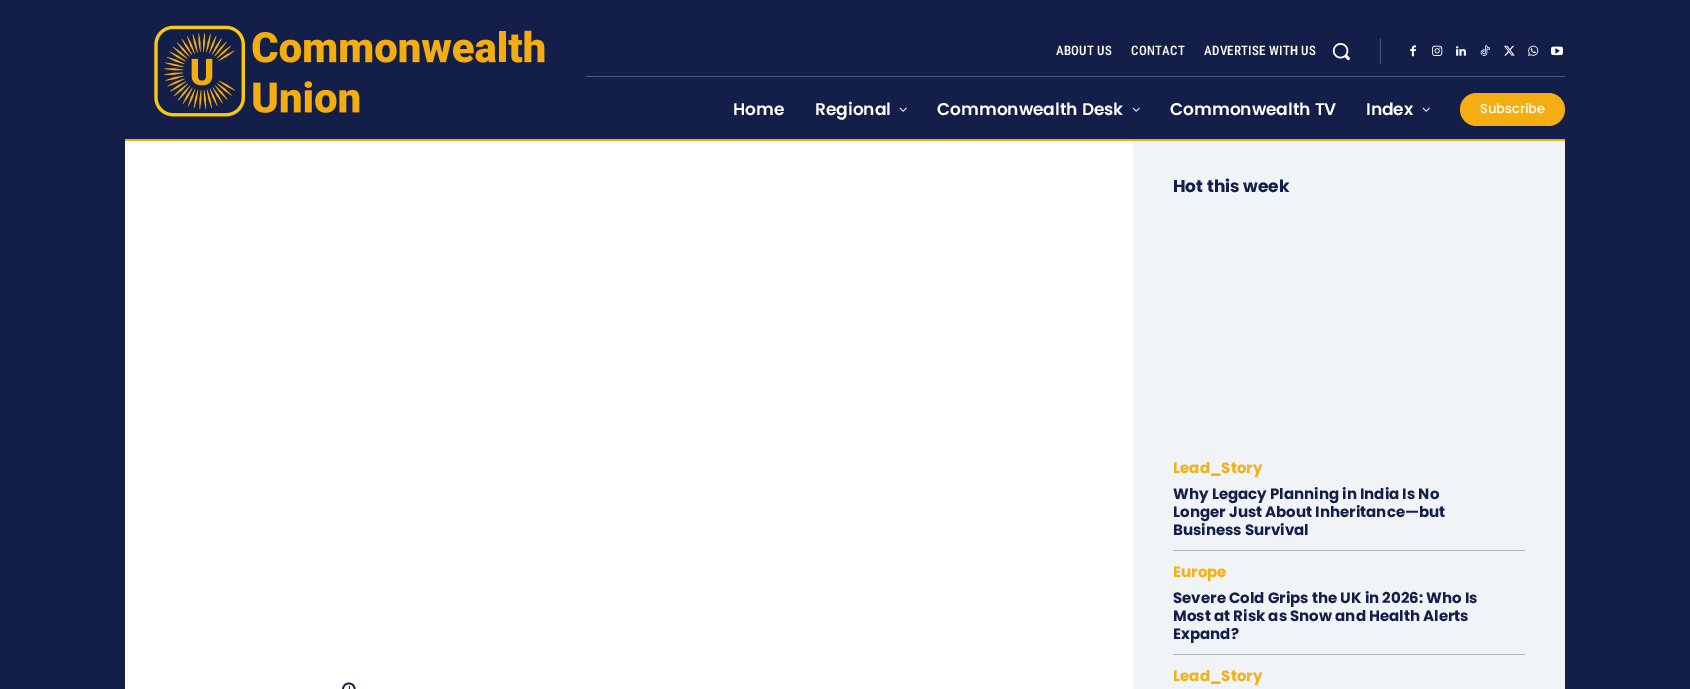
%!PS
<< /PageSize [1690 689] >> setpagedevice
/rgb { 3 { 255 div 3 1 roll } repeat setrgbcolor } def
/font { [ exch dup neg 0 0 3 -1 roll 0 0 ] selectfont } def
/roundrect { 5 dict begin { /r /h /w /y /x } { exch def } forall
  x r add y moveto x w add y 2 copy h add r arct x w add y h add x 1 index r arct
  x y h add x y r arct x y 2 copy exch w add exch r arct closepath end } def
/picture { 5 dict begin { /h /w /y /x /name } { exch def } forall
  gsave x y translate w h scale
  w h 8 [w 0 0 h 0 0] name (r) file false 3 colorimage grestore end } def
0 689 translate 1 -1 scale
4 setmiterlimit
19 31 73 rgb
0 0 1690 689 rectfill
(img/1.rgb) 154 25 391 92 picture
(img/2.rgb) 1332 43 18 18 picture
78 87 119 rgb
1380 38 1 26 rectfill
(img/3.rgb) 1410 45 6 12 picture
(img/4.rgb) 1432 45 11 11 picture
(img/5.rgb) 1456 46 10 10 picture
(img/6.rgb) 1480 45 10 11 picture
(img/7.rgb) 1504 45 11 11 picture
(img/8.rgb) 1528 45 11 11 picture
(img/9.rgb) 1551 46 12 10 picture
586 76 979 1 rectfill
(img/10.rgb) 899 107 8 5 picture
(img/10.rgb) 1132 107 8 5 picture
(img/10.rgb) 1422 107 8 5 picture
244 173 19 rgb
1460 93 105 33 16.5 roundrect fill
[
  [125 139 1440 2 244 173 19]
  [125 141 1008 548 255 255 255]
  [1133 141 432 548 241 244 247]
  [1173 550 352 1 177 180 188]
  [1173 654 352 1 177 180 188]
] { aload pop rgb rectfill } forall
(img/11.rgb) 342 682 14 7 picture
/RobotoCondensed-Medium 13 font
255 255 255 rgb
1056 55 moveto 0.25 0 (ABOUT US) ashow
1131 55 moveto 0.25 0 (CONTACT) ashow
1204 55 moveto 0.25 0 (ADVERTISE WITH US) ashow
/Poppins-SemiBold 17 font
[
  [(Home) 733 115]
  [(Regional) 815 115]
  [(Commonwealth Desk) 937 115]
  [(Commonwealth TV) 1170 115]
  [(Index) 1366 115]
] { aload pop moveto show } forall
/Poppins-Medium 13 font
1480 113 moveto (Subscribe) show
/Poppins-Bold 17 font
19 31 73 rgb
1173 192 moveto (Hot this week) show
/Poppins-Bold 15 font
244 174 22 rgb
1173 473 moveto (Lead_Story) show
19 31 73 rgb
[
  [(Why Legacy Planning in India Is No) 1173 499]
  [(Longer Just About Inheritance—but) 1173 517]
  [(Business Survival) 1173 535]
] { aload pop moveto show } forall
244 174 22 rgb
1173 577 moveto (Europe) show
19 31 73 rgb
[
  [(Severe Cold Grips the UK in 2026: Who Is) 1173 603]
  [(Most at Risk as Snow and Health Alerts) 1173 621]
  [(Expand?) 1173 639]
] { aload pop moveto show } forall
244 174 22 rgb
1173 681 moveto (Lead_Story) show
showpage
